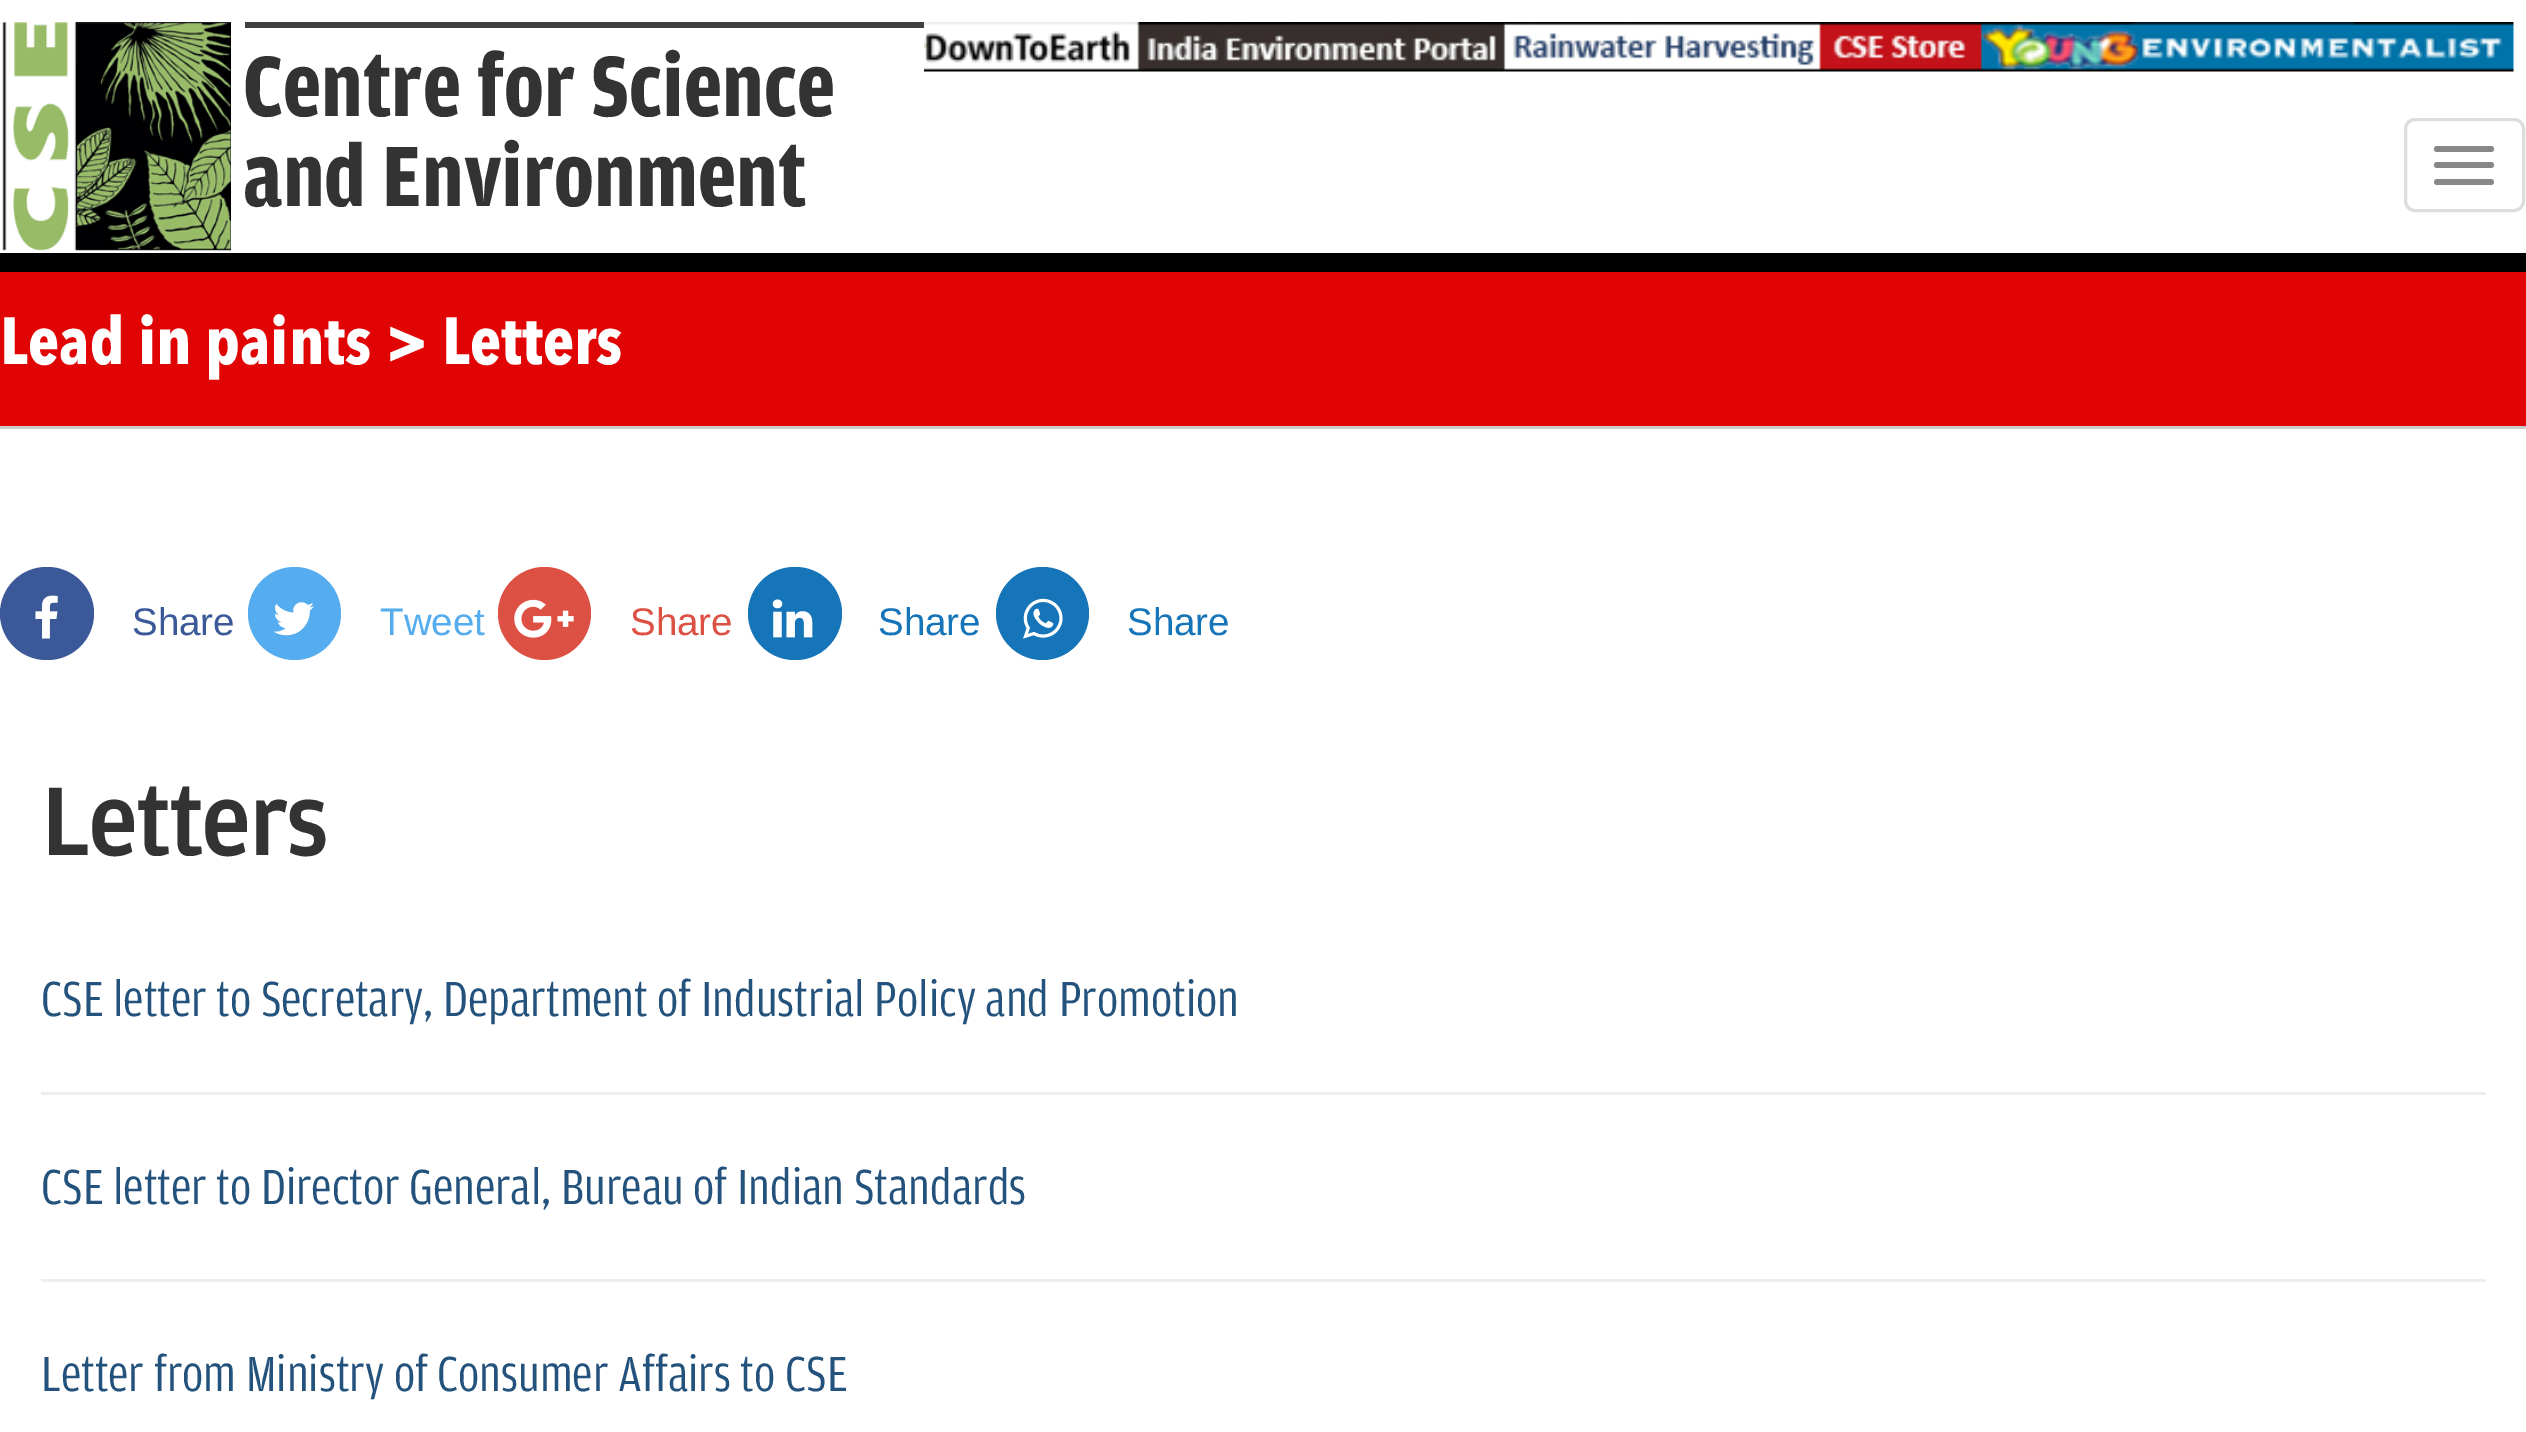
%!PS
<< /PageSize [2526 1432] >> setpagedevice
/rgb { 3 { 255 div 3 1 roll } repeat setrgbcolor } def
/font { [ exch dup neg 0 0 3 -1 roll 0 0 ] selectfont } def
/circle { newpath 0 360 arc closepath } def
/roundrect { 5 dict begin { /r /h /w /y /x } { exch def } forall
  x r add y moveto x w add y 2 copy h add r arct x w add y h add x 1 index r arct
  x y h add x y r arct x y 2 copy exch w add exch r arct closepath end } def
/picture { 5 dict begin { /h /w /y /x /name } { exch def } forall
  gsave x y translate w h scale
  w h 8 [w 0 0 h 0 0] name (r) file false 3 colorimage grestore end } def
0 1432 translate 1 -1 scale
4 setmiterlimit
255 255 255 rgb
0 0 2526 1432 rectfill
(img/1.rgb) 2 22 229 229 picture
63 63 63 rgb
245 22 679 6 rectfill
(img/2.rgb) 924 22 1590 50 picture
0 0 0 rgb
0 253 2526 19 rectfill
221 221 221 rgb
3 setlinewidth
2405.5 119.5 118 91 9.5 roundrect stroke
136 136 136 rgb
2434 146 60 6 3 roundrect fill
2434 162 60 6 3 roundrect fill
2434 179 60 6 3 roundrect fill
224 4 4 rgb
0 272 2526 154 rectfill
203 203 203 rgb
0 426 2526 3 rectfill
59 89 152 rgb
0 567 94 93 46.5 roundrect fill
(img/3.rgb) 35 595 23 44 picture
85 172 238 rgb
294.5 613.5 46.5 circle fill
(img/4.rgb) 273 602 41 34 picture
221 80 68 rgb
544.5 613.5 46.5 circle fill
(img/5.rgb) 514 599 60 39 picture
22 116 185 rgb
748 567 94 93 46.5 roundrect fill
(img/6.rgb) 772 599 41 39 picture
1042.5 613.5 46.5 circle fill
(img/7.rgb) 1023 598 40 41 picture
238 238 238 rgb
41 1092 2445 3 rectfill
41 1279 2445 3 rectfill
/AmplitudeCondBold-Bold 90.75 font
51 51 51 rgb
243 116 moveto (Centre for Science) show
243 206 moveto (and Environment) show
/AvenirNext-Bold 66 font
255 255 255 rgb
0 364 moveto (Lead in paints > Letters) show
/LiberationSans-Regular 38.5 font
59 89 152 rgb
132 635 moveto (Share) show
85 172 238 rgb
380 635 moveto (Tweet) show
221 80 68 rgb
630 635 moveto (Share) show
22 116 185 rgb
878 635 moveto (Share) show
1127 635 moveto (Share) show
/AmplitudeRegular-Bold 99 font
51 51 51 rgb
41 855 moveto (Letters) show
/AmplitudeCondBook-Regular 52.25 font
35 82 124 rgb
[
  [(CSE letter to Secretary, Department of Industrial Policy and Promotion) 41 1016]
  [(CSE letter to Director General, Bureau of Indian Standards) 41 1204]
  [(Letter from Ministry of Consumer Affairs to CSE) 41 1391]
] { aload pop moveto show } forall
showpage
